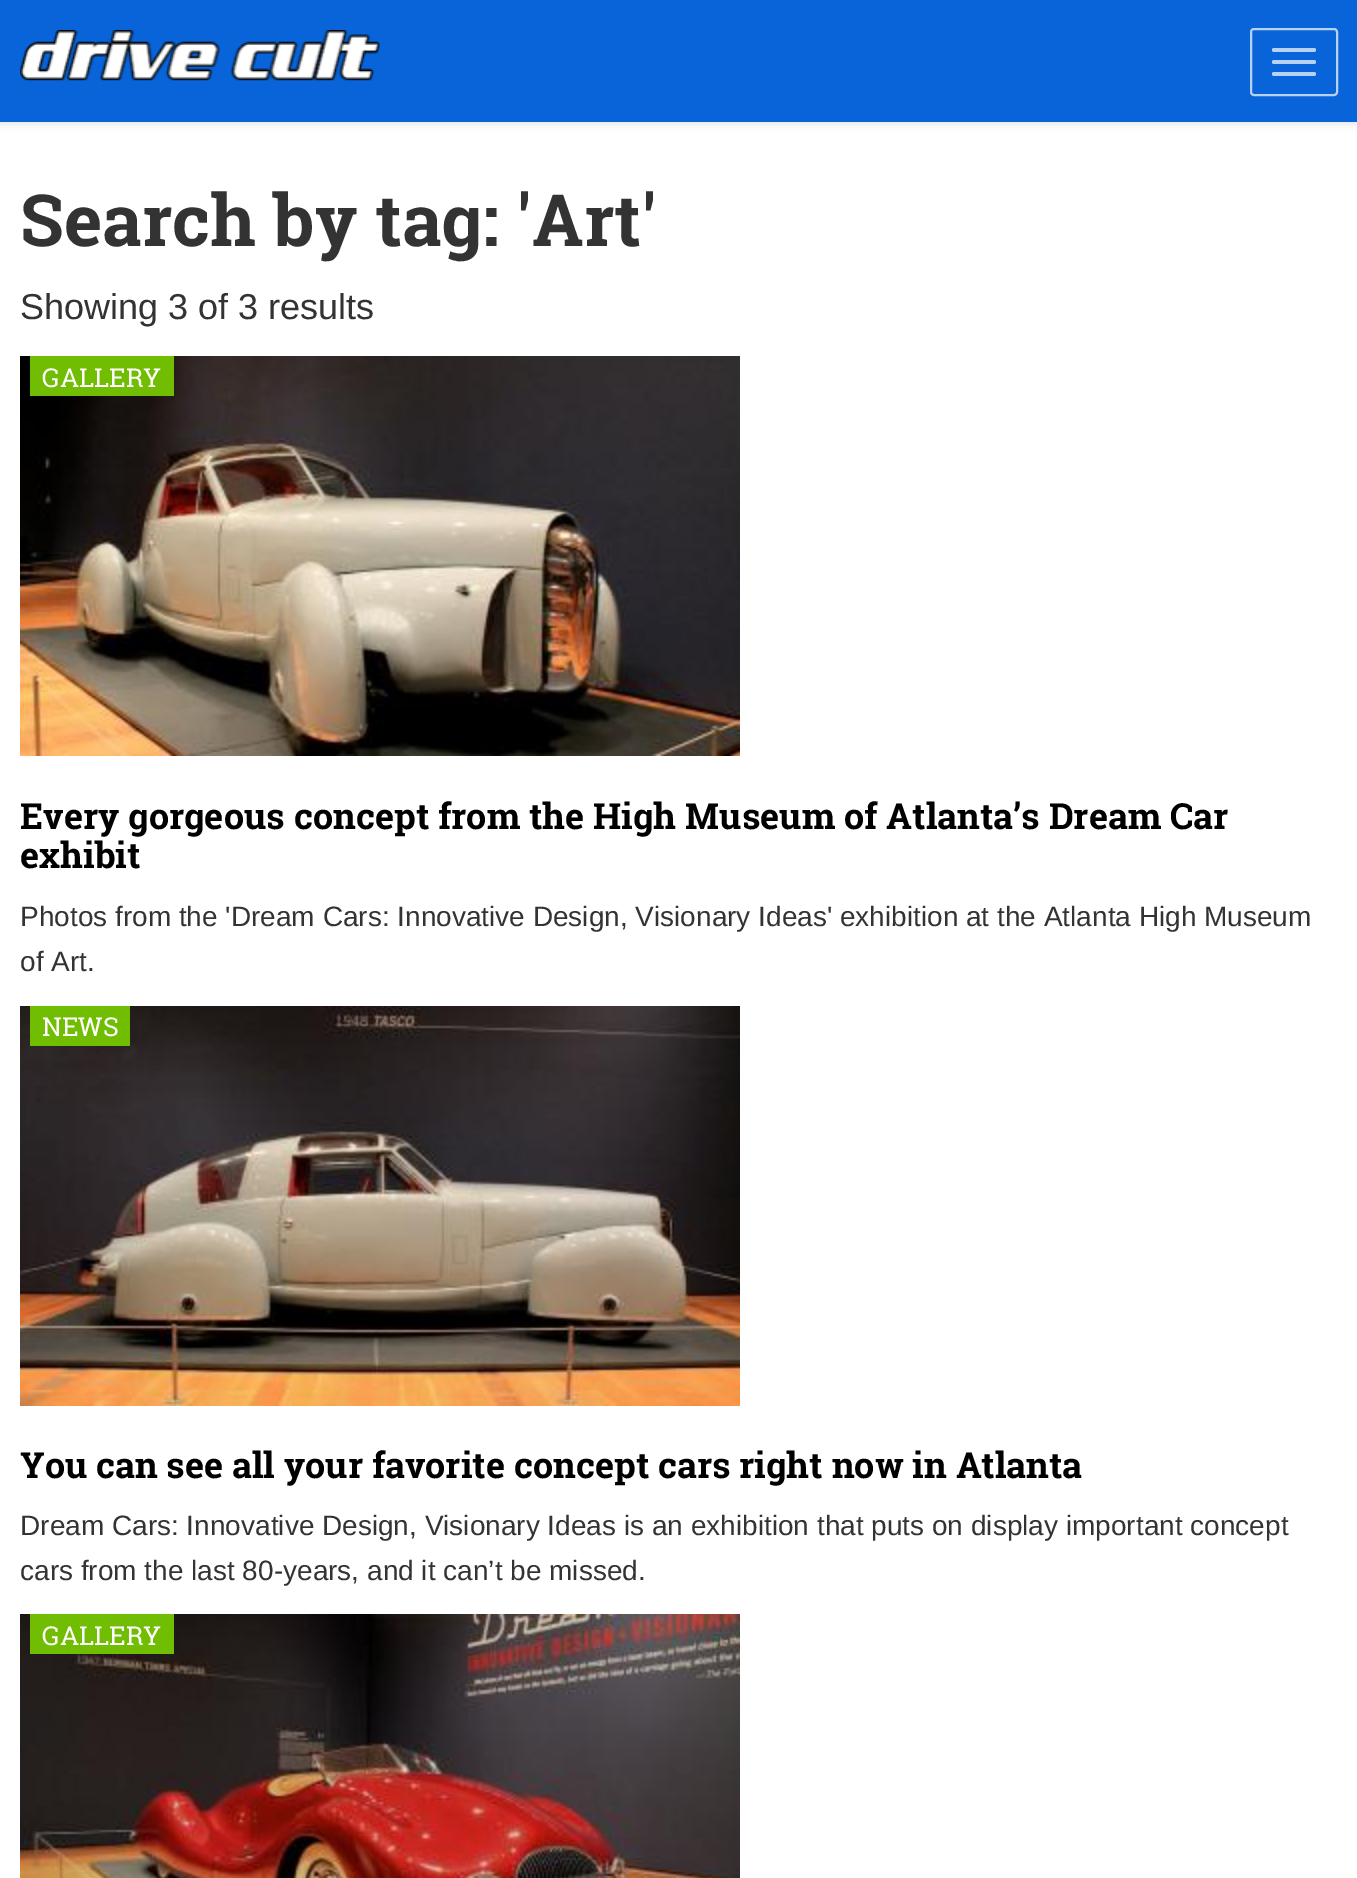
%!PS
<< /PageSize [1357 1878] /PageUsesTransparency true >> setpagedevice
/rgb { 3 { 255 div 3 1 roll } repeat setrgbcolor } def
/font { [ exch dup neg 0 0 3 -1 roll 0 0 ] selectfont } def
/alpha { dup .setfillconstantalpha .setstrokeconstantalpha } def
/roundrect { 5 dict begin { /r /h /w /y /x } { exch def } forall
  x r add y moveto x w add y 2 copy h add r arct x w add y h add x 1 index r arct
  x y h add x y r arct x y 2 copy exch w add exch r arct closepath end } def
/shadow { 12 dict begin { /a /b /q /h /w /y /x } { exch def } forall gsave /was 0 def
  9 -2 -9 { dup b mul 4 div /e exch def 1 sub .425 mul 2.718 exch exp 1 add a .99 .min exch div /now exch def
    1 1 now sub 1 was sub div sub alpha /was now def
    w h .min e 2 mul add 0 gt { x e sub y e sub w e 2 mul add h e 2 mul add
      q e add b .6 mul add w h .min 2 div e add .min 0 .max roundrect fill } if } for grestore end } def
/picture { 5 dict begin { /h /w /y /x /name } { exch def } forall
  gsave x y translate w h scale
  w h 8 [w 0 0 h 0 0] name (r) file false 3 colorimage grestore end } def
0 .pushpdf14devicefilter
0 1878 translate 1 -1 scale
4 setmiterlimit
255 255 255 rgb
0 0 1357 1878 rectfill
0 0 0 rgb
0 0 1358 122 0 5 0.15 shadow
8 100 216 rgb
0 0 1357 122 rectfill
(img/1.rgb) 20 30 360 51 picture
181 209 243 rgb
2 setlinewidth
1251 29 86 66 3 roundrect stroke
1272 48 44 4 2 roundrect fill
1272 60 44 4 2 roundrect fill
1272 72 44 4 2 roundrect fill
(img/2.rgb) 20 356 720 400 picture
112 189 2 rgb
30 356 144 40 rectfill
(img/3.rgb) 20 1006 720 400 picture
30 1006 100 40 rectfill
(img/4.rgb) 20 1614 720 264 picture
30 1614 144 40 rectfill
/RobotoSlab-Bold 72 font
51 51 51 rgb
20 246 moveto (Search by tag: 'Art') show
/Arimo-Regular 36 font
20 319 moveto (Showing 3 of 3 results) show
/RobotoSlab-Regular 26 font
255 255 255 rgb
42 387 moveto (GALLERY) show
/RobotoSlab-Bold 36 font
0 0 0 rgb
20 829 moveto (Every gorgeous concept from the High Museum of Atlanta’s Dream Car) show
20 868 moveto (exhibit) show
/Arimo-Regular 28 font
51 51 51 rgb
20 926 moveto (Photos from the 'Dream Cars: Innovative Design, Visionary Ideas' exhibition at the Atlanta High Museum) show
20 971 moveto (of Art.) show
/RobotoSlab-Regular 26 font
255 255 255 rgb
42 1036 moveto (NEWS) show
/RobotoSlab-Bold 36 font
0 0 0 rgb
20 1478 moveto (You can see all your favorite concept cars right now in Atlanta) show
/Arimo-Regular 28 font
51 51 51 rgb
20 1535 moveto (Dream Cars: Innovative Design, Visionary Ideas is an exhibition that puts on display important concept) show
20 1580 moveto (cars from the last 80-years, and it can’t be missed.) show
/RobotoSlab-Regular 26 font
255 255 255 rgb
42 1645 moveto (GALLERY) show
.poppdf14devicefilter showpage
